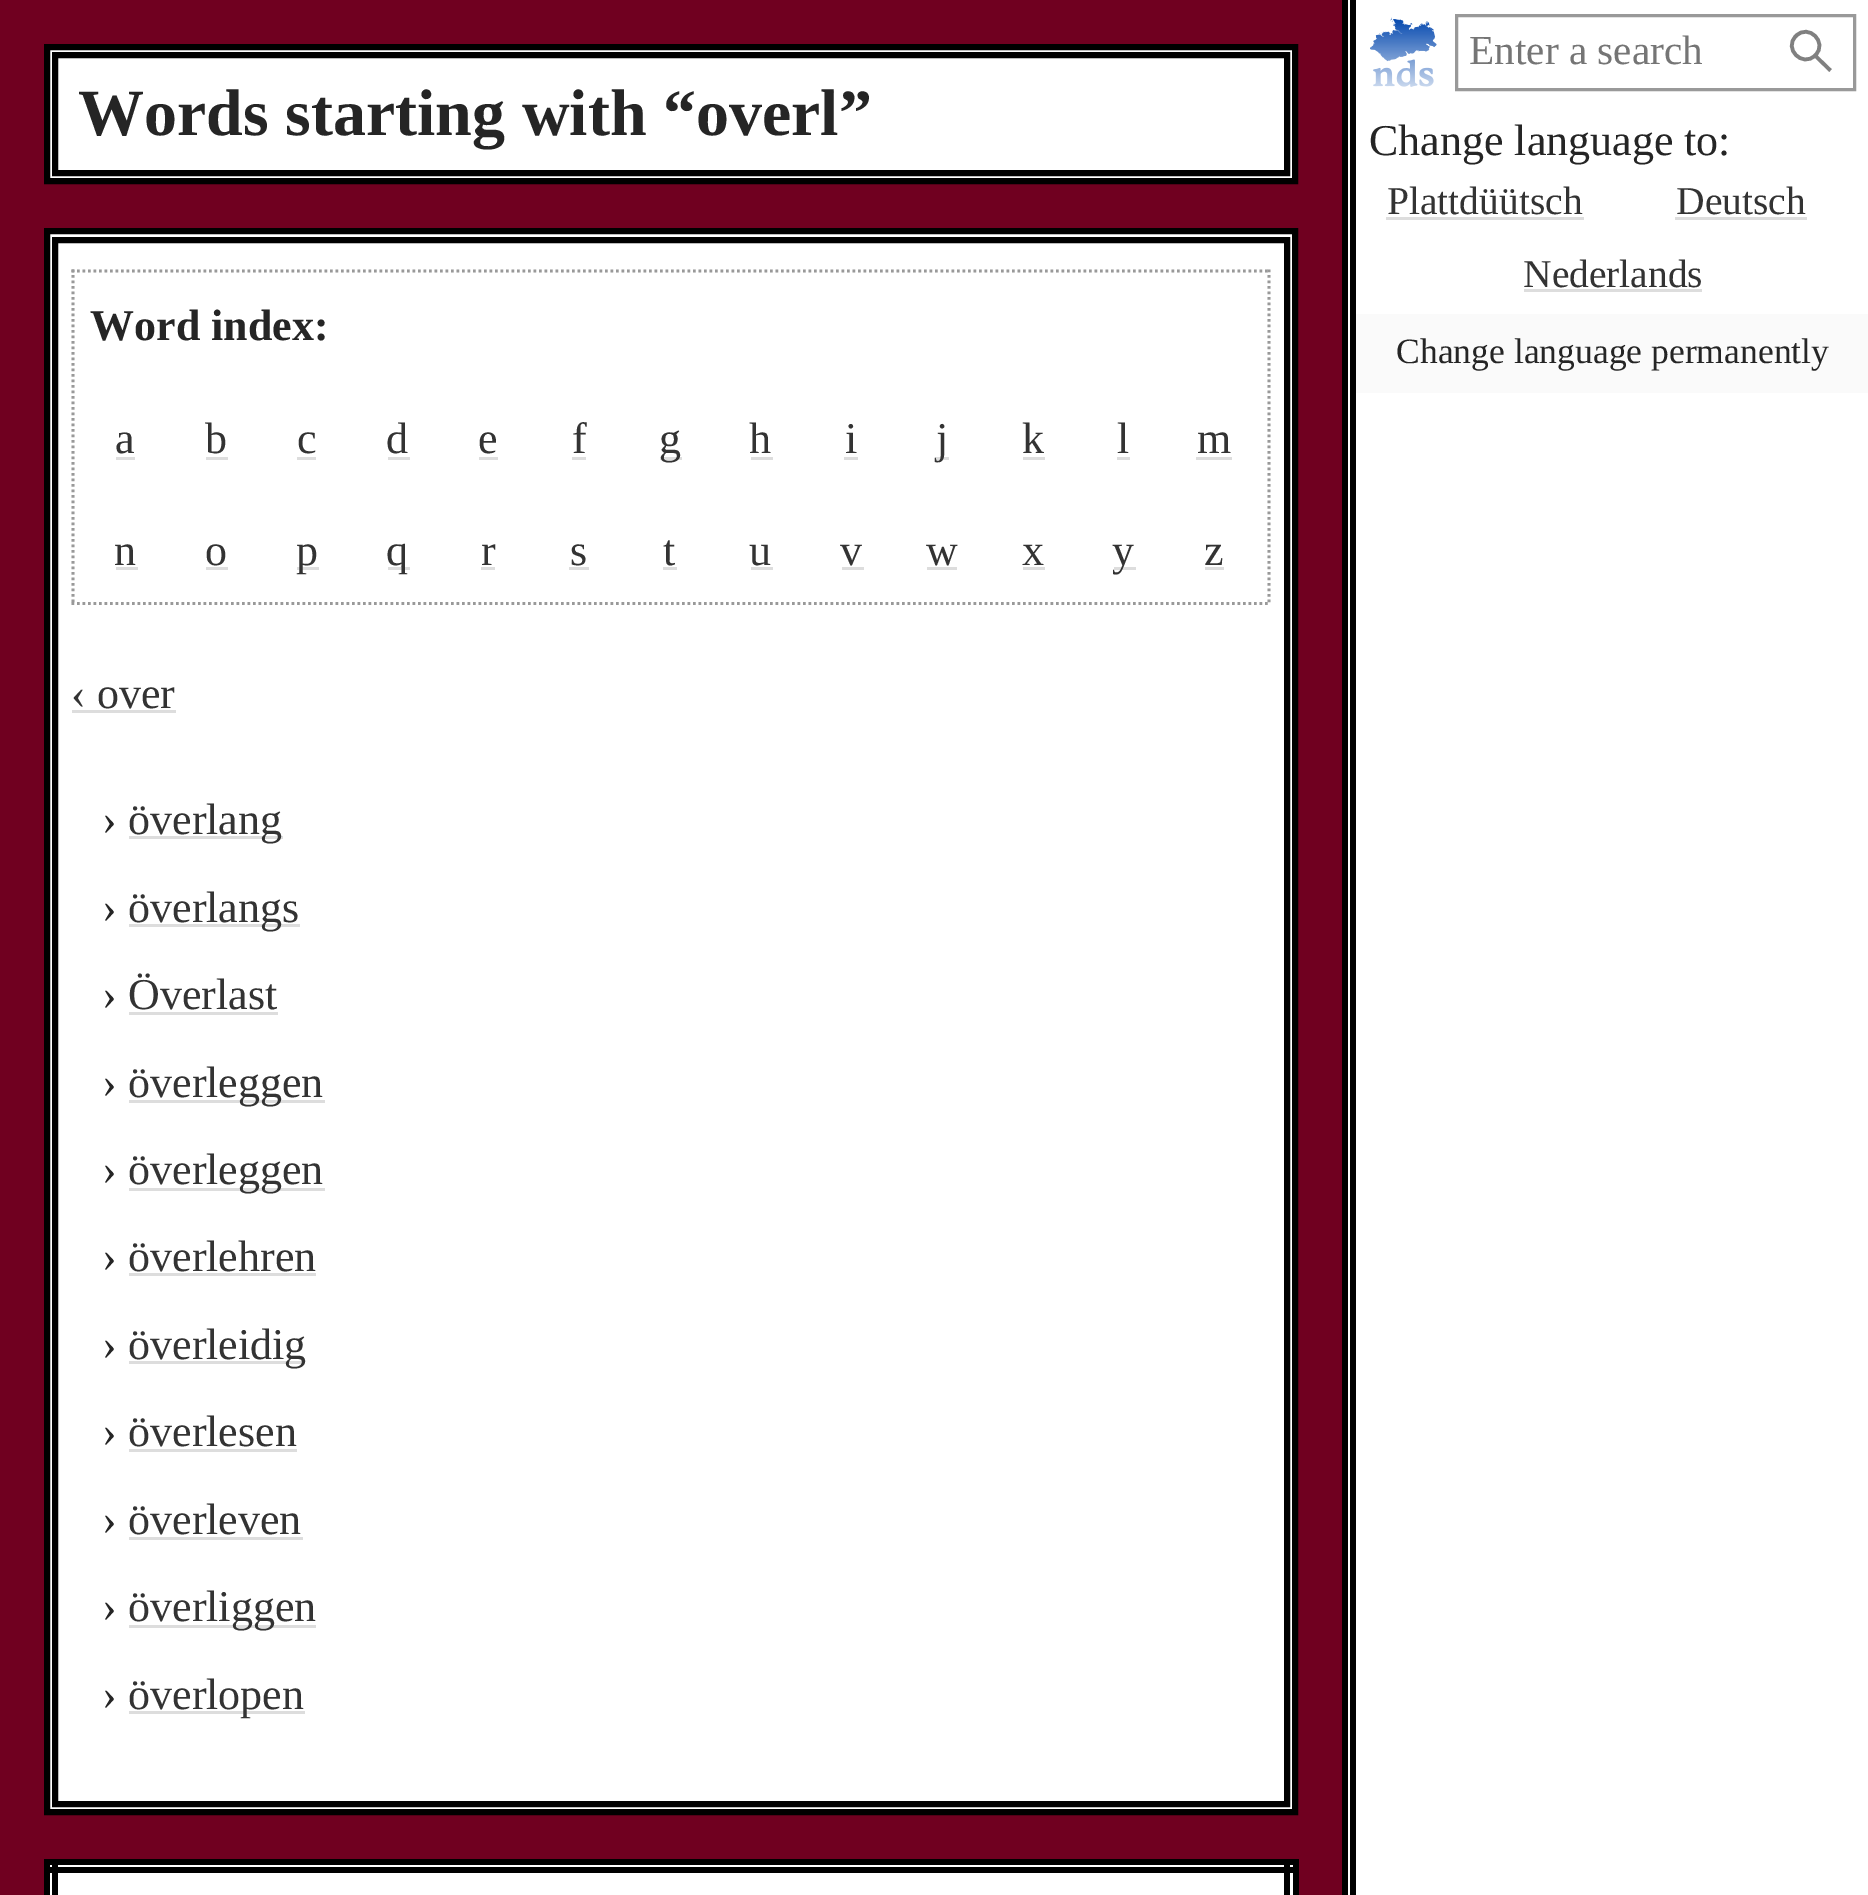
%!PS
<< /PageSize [1868 1895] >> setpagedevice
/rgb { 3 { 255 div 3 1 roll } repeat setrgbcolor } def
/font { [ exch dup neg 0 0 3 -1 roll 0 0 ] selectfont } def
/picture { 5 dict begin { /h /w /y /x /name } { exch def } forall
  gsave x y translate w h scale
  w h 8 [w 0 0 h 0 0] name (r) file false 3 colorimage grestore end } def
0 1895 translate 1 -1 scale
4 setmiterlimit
112 0 32 rgb
0 0 1868 1895 rectfill
255 255 255 rgb
47 47 moveto 1295 47 lineto 1295 181 lineto 47 181 lineto closepath gsave fill grestore
0 0 0 rgb
6 setlinewidth
stroke
55 55 1232 118 rectstroke
[
  [1348 0 520 1895 255 255 255]
  [1342 0 6 1895 0 0 0]
  [1350 0 6 1895 0 0 0]
] { aload pop rgb rectfill } forall
(img/1.rgb) 1370 17 67 70 picture
153 153 153 rgb
3 setlinewidth
1456.5 15.5 398 74 rectstroke
128 128 128 rgb
3.6 setlinewidth
1815.5 55 moveto 1828 42.5 1808.5 23 1796 36 curveto 1783 48.5 1802.5 68 1815 55.5 curveto 1830.5 70.5 lineto stroke
[
  [1386 217 198 3 221 221 221]
  [1675 217 132 3 221 221 221]
  [1524 289 178 3 221 221 221]
  [1356 314 512 79 250 250 250]
] { aload pop rgb rectfill } forall
255 255 255 rgb
47 231 moveto 1295 231 lineto 1295 1812 lineto 47 1812 lineto closepath gsave fill grestore
0 0 0 rgb
6 setlinewidth
stroke
55 240 1232 1564 rectstroke
153 153 153 rgb
2.8 setlinewidth
[2.75 2.75] 0 setdash
71.5 271 moveto 1270.5 271 lineto stroke
1269 269.5 moveto 1269 605 lineto stroke
71.5 603.5 moveto 1270.5 603.5 lineto stroke
73 269.5 moveto 73 605 lineto stroke
[
  [116 457 19 3 221 221 221]
  [206 457 22 3 221 221 221]
  [297 457 19 3 221 221 221]
  [388 457 22 3 221 221 221]
  [479 457 19 3 221 221 221]
  [572 457 14 3 221 221 221]
  [660 457 22 3 221 221 221]
  [751 457 22 3 221 221 221]
  [844 457 14 3 221 221 221]
  [935 457 14 3 221 221 221]
  [1023 457 22 3 221 221 221]
  [1117 457 13 3 221 221 221]
  [1196 457 36 3 221 221 221]
  [116 567 22 3 221 221 221]
  [206 567 22 3 221 221 221]
  [297 567 22 3 221 221 221]
  [388 567 22 3 221 221 221]
  [481 567 14 3 221 221 221]
  [569 567 20 3 221 221 221]
  [663 567 14 3 221 221 221]
  [751 567 22 3 221 221 221]
  [842 567 22 3 221 221 221]
  [927 567 30 3 221 221 221]
  [1023 567 22 3 221 221 221]
  [1114 567 22 3 221 221 221]
  [1205 567 19 3 221 221 221]
  [72 710 104 3 221 221 221]
  [129 836 154 3 221 221 221]
  [129 924 171 3 221 221 221]
  [129 1012 149 3 221 221 221]
  [129 1100 196 3 221 221 221]
  [129 1188 196 3 221 221 221]
  [129 1273 187 3 221 221 221]
  [129 1361 176 3 221 221 221]
  [129 1449 168 3 221 221 221]
  [129 1537 174 3 221 221 221]
  [129 1625 187 3 221 221 221]
  [129 1711 176 3 221 221 221]
  [50 1865 1243 30 255 255 255]
  [44 1859 1254 6 0 0 0]
  [44 1867 1254 6 0 0 0]
  [1284 1859 6 36 0 0 0]
  [1293 1859 6 36 0 0 0]
  [44 1859 6 36 0 0 0]
  [52 1859 6 36 0 0 0]
] { aload pop rgb rectfill } forall
/LiberationSerif-Bold 66 font
37 37 37 rgb
78 135 moveto (Words starting with “overl”) show
/LiberationSerif-Regular 41.25 font
117 117 117 rgb
1469 64 moveto (Enter a search) show
/LiberationSerif-Regular 44 font
37 37 37 rgb
1369 155 moveto (Change language to:) show
/LiberationSerif-Regular 39.5 font
51 51 51 rgb
[
  [(Plattdüütsch) 1387 214]
  [(Deutsch) 1676 214]
  [(Nederlands) 1523 287]
] { aload pop moveto show } forall
/LiberationSerif-Regular 35.6 font
37 37 37 rgb
1396 363 moveto (Change language permanently) show
/LiberationSerif-Bold 44 font
90 340 moveto (Word index:) show
/LiberationSerif-Regular 44 font
51 51 51 rgb
[
  [(a) 115 453]
  [(b) 205 453]
  [(c) 297 453]
  [(d) 386 453]
  [(e) 478 453]
  [(f) 572 453]
  [(g) 659 453]
  [(h) 749 453]
  [(i) 845 453]
  [(j) 936 453]
  [(k) 1022 453]
  [(l) 1117 453]
  [(m) 1197 453]
  [(n) 114 565]
  [(o) 205 565]
  [(p) 296 565]
  [(q) 386 565]
  [(r) 481 565]
  [(s) 570 565]
  [(t) 663 565]
  [(u) 749 565]
  [(v) 840 565]
  [(w) 926 565]
  [(x) 1022 565]
  [(y) 1112 565]
  [(z) 1204 565]
  [(‹ over) 71 708]
] { aload pop moveto show } forall
37 37 37 rgb
102 834 moveto (›) show
51 51 51 rgb
128 834 moveto (överlang) show
37 37 37 rgb
102 922 moveto (›) show
51 51 51 rgb
128 922 moveto (överlangs) show
37 37 37 rgb
102 1009 moveto (›) show
51 51 51 rgb
128 1009 moveto (Överlast) show
37 37 37 rgb
102 1097 moveto (›) show
51 51 51 rgb
128 1097 moveto (överleggen) show
37 37 37 rgb
102 1184 moveto (›) show
51 51 51 rgb
128 1184 moveto (överleggen) show
37 37 37 rgb
102 1271 moveto (›) show
51 51 51 rgb
128 1271 moveto (överlehren) show
37 37 37 rgb
102 1359 moveto (›) show
51 51 51 rgb
128 1359 moveto (överleidig) show
37 37 37 rgb
102 1446 moveto (›) show
51 51 51 rgb
128 1446 moveto (överlesen) show
37 37 37 rgb
102 1534 moveto (›) show
51 51 51 rgb
128 1534 moveto (överleven) show
37 37 37 rgb
102 1621 moveto (›) show
51 51 51 rgb
128 1621 moveto (överliggen) show
37 37 37 rgb
102 1709 moveto (›) show
51 51 51 rgb
128 1709 moveto (överlopen) show
showpage
